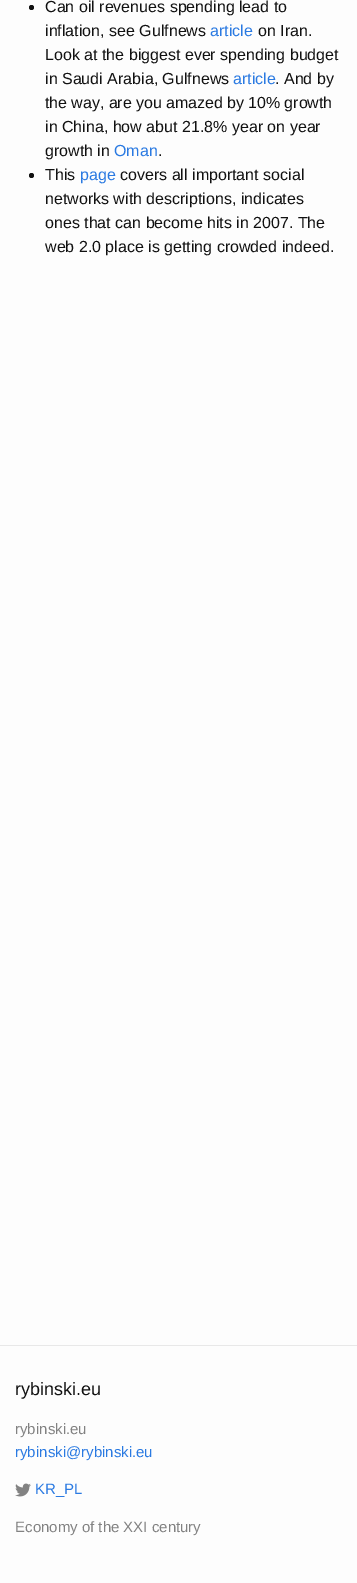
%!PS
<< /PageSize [357 1583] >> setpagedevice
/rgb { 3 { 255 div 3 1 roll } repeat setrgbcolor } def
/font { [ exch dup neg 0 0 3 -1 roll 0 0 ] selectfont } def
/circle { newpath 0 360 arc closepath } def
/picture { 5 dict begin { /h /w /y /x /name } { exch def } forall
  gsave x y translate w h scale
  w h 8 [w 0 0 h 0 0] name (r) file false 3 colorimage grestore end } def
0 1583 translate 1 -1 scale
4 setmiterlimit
253 253 253 rgb
0 0 357 1583 rectfill
17 17 17 rgb
31.5 7.5 2.5 circle fill
31.5 175.5 2.5 circle fill
232 232 232 rgb
0 1345 357 1 rectfill
(img/1.rgb) 15 1483 16 14 picture
/LiberationSans-Regular 16 font
17 17 17 rgb
45 12 moveto (Can oil revenues spending lead to) show
45 36 moveto (inflation, see Gulfnews) show
42 122 226 rgb
210 36 moveto (article) show
17 17 17 rgb
[
  [(on Iran.) 258 36]
  [(Look at the biggest ever spending budget) 45 60]
  [(in Saudi Arabia, Gulfnews) 45 84]
] { aload pop moveto show } forall
42 122 226 rgb
233 84 moveto (article) show
17 17 17 rgb
275 84 moveto (. And by) show
45 108 moveto -0.25 0 32 (the way, are you amazed by 10% growth) widthshow
45 132 moveto (in China, how abut 21.8% year on year) show
45 156 moveto (growth in) show
42 122 226 rgb
114 156 moveto (Oman) show
17 17 17 rgb
158 156 moveto (.) show
45 180 moveto (This) show
42 122 226 rgb
80 180 moveto (page) show
17 17 17 rgb
[
  [(covers all important social) 120 180]
  [(networks with descriptions, indicates) 45 204]
  [(ones that can become hits in 2007. The) 45 228]
  [(web 2.0 place is getting crowded indeed.) 45 252]
] { aload pop moveto show } forall
/LiberationSans-Regular 18 font
15 1395 moveto (rybinski.eu) show
/LiberationSans-Regular 15 font
130 130 130 rgb
15 1434 moveto (rybinski.eu) show
42 122 226 rgb
15 1457 moveto (rybinski@rybinski.eu) show
35 1494 moveto (KR_PL) show
130 130 130 rgb
15 1532 moveto (Economy of the XXI century) show
showpage
